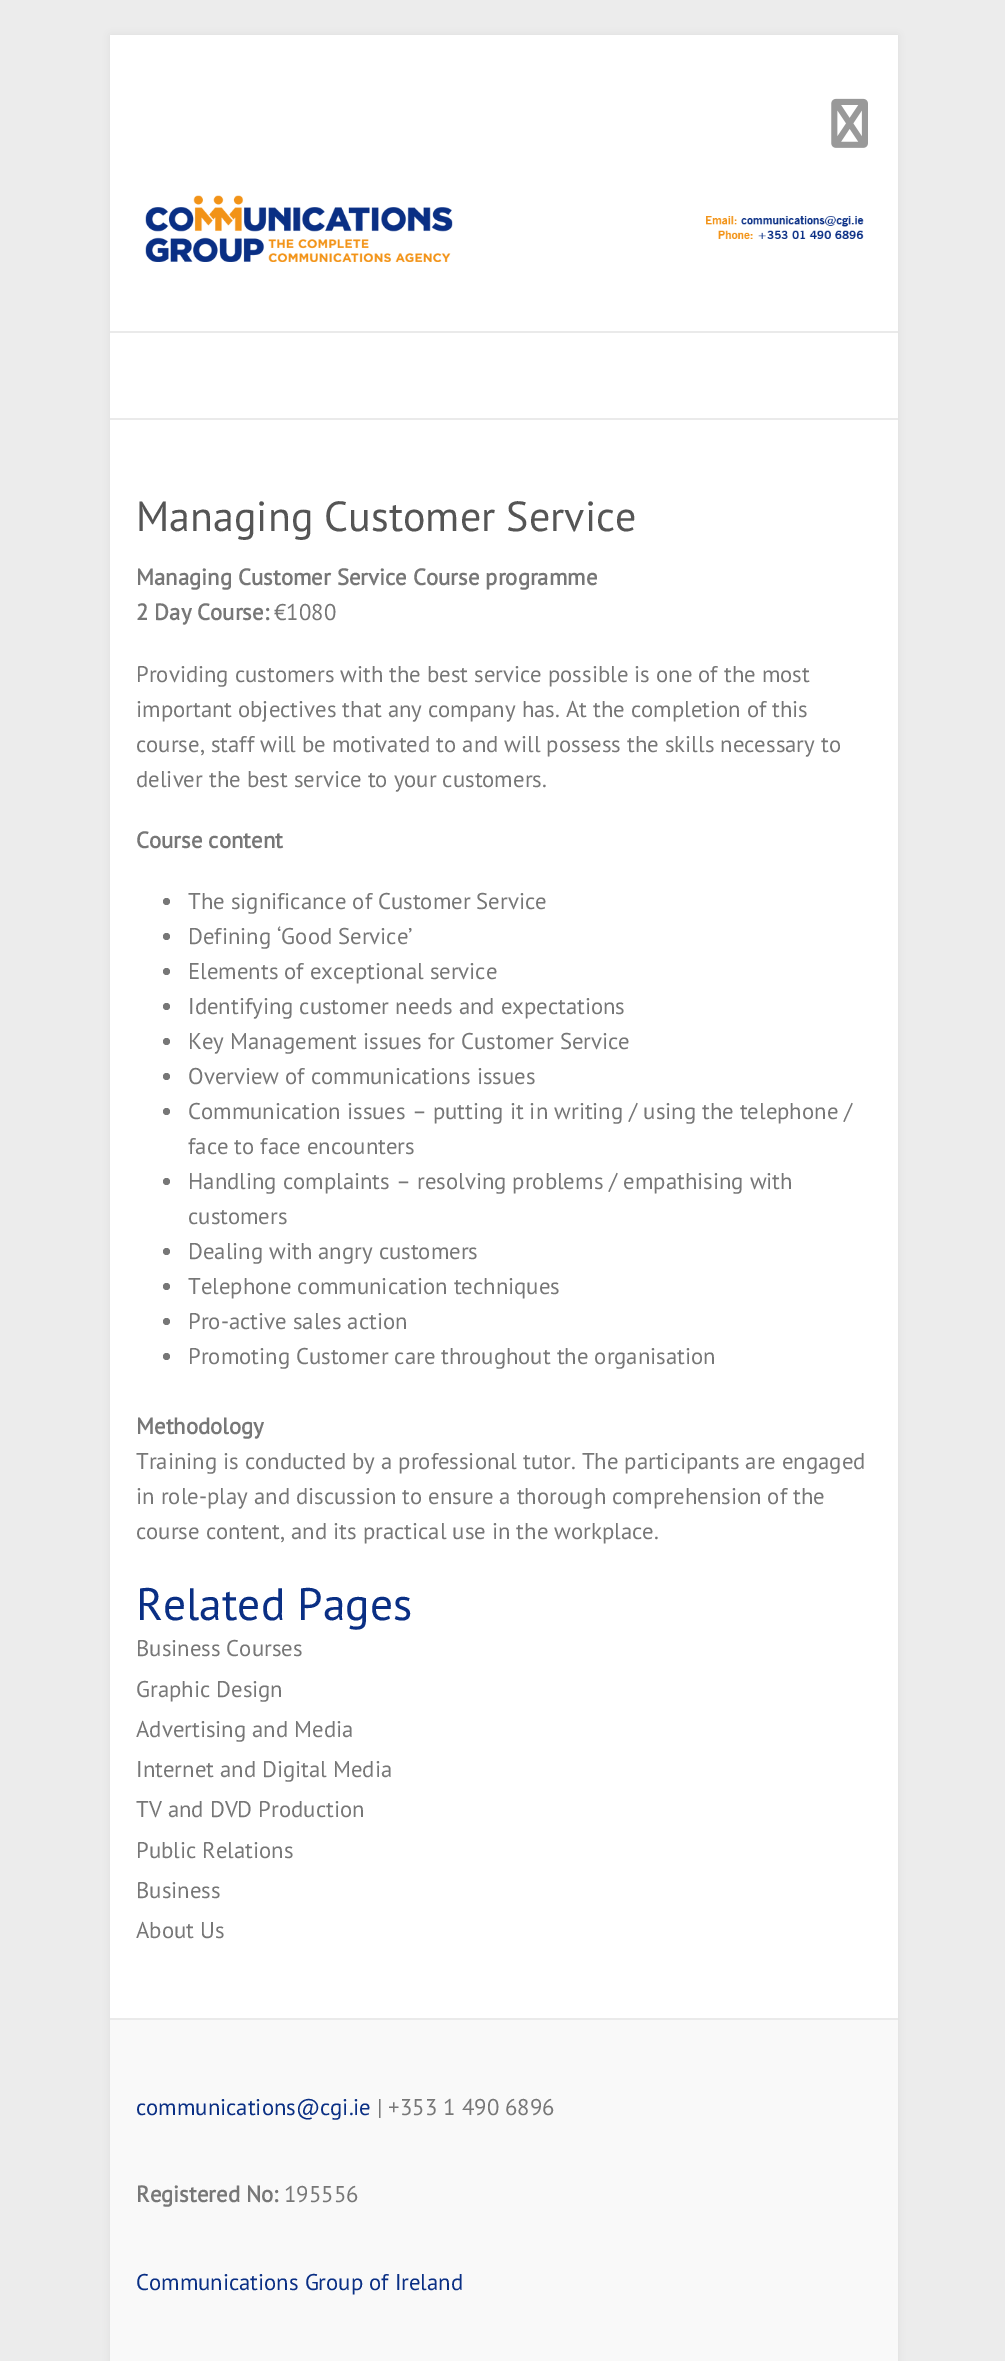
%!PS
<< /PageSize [1005 2361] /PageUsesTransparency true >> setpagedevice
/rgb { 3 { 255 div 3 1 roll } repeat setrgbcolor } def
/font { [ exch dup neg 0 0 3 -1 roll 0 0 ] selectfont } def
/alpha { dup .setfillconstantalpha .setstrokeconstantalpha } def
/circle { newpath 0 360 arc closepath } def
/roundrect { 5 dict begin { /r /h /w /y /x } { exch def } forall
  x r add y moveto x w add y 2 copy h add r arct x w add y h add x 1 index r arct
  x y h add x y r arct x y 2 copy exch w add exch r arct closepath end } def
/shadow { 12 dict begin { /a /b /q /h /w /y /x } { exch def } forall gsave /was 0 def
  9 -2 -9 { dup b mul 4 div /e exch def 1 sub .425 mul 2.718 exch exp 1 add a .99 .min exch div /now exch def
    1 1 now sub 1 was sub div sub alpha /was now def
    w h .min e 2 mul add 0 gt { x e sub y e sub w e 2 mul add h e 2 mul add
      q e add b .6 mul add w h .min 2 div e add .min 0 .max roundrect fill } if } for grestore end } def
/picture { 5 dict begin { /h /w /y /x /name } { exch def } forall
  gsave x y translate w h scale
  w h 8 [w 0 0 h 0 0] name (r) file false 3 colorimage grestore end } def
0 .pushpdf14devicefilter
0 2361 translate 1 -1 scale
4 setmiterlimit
236 236 236 rgb
0 0 1005 2361 rectfill
221 221 221 rgb
110 35 788 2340 0 4.5 1 shadow
255 255 255 rgb
110 35 788 1983 rectfill
(img/1.rgb) 831 98 37 50 picture
(img/2.rgb) 145 195 719 67 picture
234 234 234 rgb
110 331 788 2 rectfill
110 418 788 2 rectfill
119 119 119 rgb
166.5 901.5 3.5 circle fill
166.5 936.5 3.5 circle fill
166.5 971.5 3.5 circle fill
166.5 1006.5 3.5 circle fill
166.5 1041.5 3.5 circle fill
166.5 1076.5 3.5 circle fill
166.5 1111.5 3.5 circle fill
166.5 1181.5 3.5 circle fill
166.5 1251.5 3.5 circle fill
166.5 1286.5 3.5 circle fill
166.5 1321.5 3.5 circle fill
166.5 1356.5 3.5 circle fill
249 249 249 rgb
110 2020 788 341 rectfill
234 234 234 rgb
110 2018 788 2 rectfill
/PTSans-Regular 42 font
85 85 85 rgb
136 531 moveto (Managing Customer Service) show
/PTSans-Bold 22.75 font
119 119 119 rgb
136 585 moveto (Managing Customer Service Course programme) show
136 620 moveto (2 Day Course:) show
/PTSans-Regular 22.75 font
[
  [(€1080) 274 620]
  [(Providing customers with the best service possible is one of the most) 136 682]
  [(important objectives that any company has. At the completion of this) 136 717]
] { aload pop moveto show } forall
gsave
137 560 735 1015 rectclip
136 752 moveto (course, staff will be motivated to and will possess the skills necessary to) show
136 787 moveto (deliver the best service to your customers.) show
grestore
/PTSans-Bold 22.75 font
136 848 moveto (Course content) show
/PTSans-Regular 22.75 font
[
  [(The significance of Customer Service) 188 909]
  [(Defining ‘Good Service’) 188 944]
  [(Elements of exceptional service) 188 979]
  [(Identifying customer needs and expectations) 188 1014]
  [(Key Management issues for Customer Service) 188 1049]
  [(Overview of communications issues) 188 1084]
  [(Communication issues – putting it in writing / using the telephone /) 188 1119]
  [(face to face encounters) 188 1154]
  [(Handling complaints – resolving problems / empathising with) 188 1189]
  [(customers) 188 1224]
  [(Dealing with angry customers) 188 1259]
  [(Telephone communication techniques) 188 1294]
  [(Pro-active sales action) 188 1329]
  [(Promoting Customer care throughout the organisation) 188 1364]
] { aload pop moveto show } forall
/PTSans-Bold 22.75 font
136 1434 moveto (Methodology) show
/PTSans-Regular 22.75 font
136 1469 moveto (Training is conducted by a professional tutor. The participants are engaged) show
136 1504 moveto (in role-play and discussion to ensure a thorough comprehension of the) show
gsave
137 560 735 1015 rectclip
136 1539 moveto (course content, and its practical use in the workplace.) show
grestore
/PTSans-Regular 45.5 font
10 47 132 rgb
136 1620 moveto (Related Pages) show
/PTSans-Regular 22.75 font
119 119 119 rgb
[
  [(Business Courses) 136 1656]
  [(Graphic Design) 136 1697]
  [(Advertising and Media) 136 1737]
  [(Internet and Digital Media) 136 1777]
  [(TV and DVD Production) 136 1817]
  [(Public Relations) 136 1858]
  [(Business) 136 1898]
  [(About Us) 136 1938]
] { aload pop moveto show } forall
10 47 132 rgb
136 2115 moveto (communications@cgi.ie) show
119 119 119 rgb
377 2115 moveto (| +353 1 490 6896) show
/PTSans-Bold 22.75 font
136 2202 moveto (Registered No:) show
/PTSans-Regular 22.75 font
284 2202 moveto (195556) show
10 47 132 rgb
136 2290 moveto (Communications Group of Ireland) show
.poppdf14devicefilter showpage
